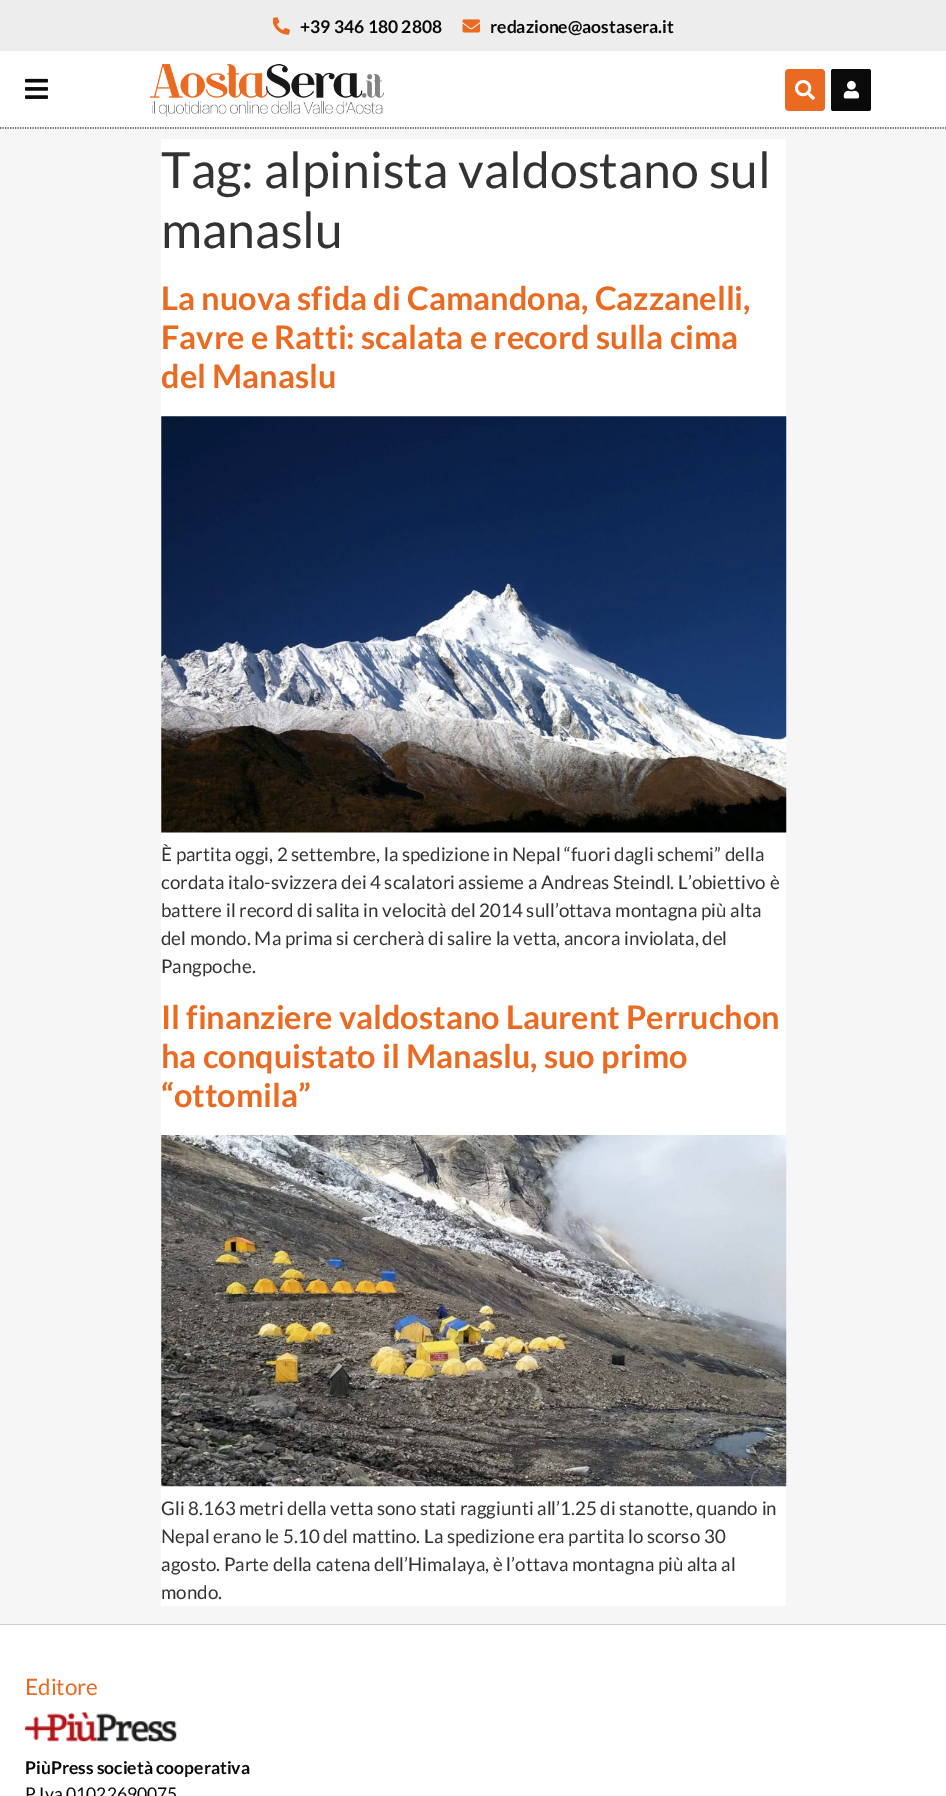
%!PS
<< /PageSize [946 1796] >> setpagedevice
/rgb { 3 { 255 div 3 1 roll } repeat setrgbcolor } def
/font { [ exch dup neg 0 0 3 -1 roll 0 0 ] selectfont } def
/roundrect { 5 dict begin { /r /h /w /y /x } { exch def } forall
  x r add y moveto x w add y 2 copy h add r arct x w add y h add x 1 index r arct
  x y h add x y r arct x y 2 copy exch w add exch r arct closepath end } def
/picture { 5 dict begin { /h /w /y /x /name } { exch def } forall
  gsave x y translate w h scale
  w h 8 [w 0 0 h 0 0] name (r) file false 3 colorimage grestore end } def
0 1796 translate 1 -1 scale
4 setmiterlimit
246 246 246 rgb
0 0 946 1796 rectfill
255 255 255 rgb
0 51 946 78 rectfill
237 237 237 rgb
0 0 946 51 rectfill
(img/1.rgb) 273 17 17 18 picture
(img/2.rgb) 462 19 18 14 picture
51 51 51 rgb
1.2 setlinewidth
[1.25 1.25] 0 setdash
0 128 moveto 946 128 lineto stroke
(img/3.rgb) 25 78 23 21 picture
(img/4.rgb) 150 64 234 53 picture
234 106 33 rgb
785 69 40 42 4 roundrect fill
(img/5.rgb) 795 80 20 20 picture
10 10 10 rgb
831 69 40 42 2.5 roundrect fill
(img/6.rgb) 843 80 17 19 picture
255 255 255 rgb
161 139 625 1467 rectfill
(img/7.rgb) 161 416 626 417 picture
(img/8.rgb) 161 1135 626 352 picture
0 1625 946 171 rectfill
206 206 206 rgb
0 1624 946 1 rectfill
(img/9.rgb) 25 1712 152 30 picture
/Lato-Bold 17.5 font
10 10 10 rgb
300 33 moveto (+39 346 180 2808) show
490 33 moveto (redazione@aostasera.it) show
/Lato-Regular 50 font
51 51 51 rgb
161 188 moveto (Tag: alpinista valdostano sul) show
161 248 moveto (manaslu) show
/Lato-Bold 32.5 font
234 106 33 rgb
[
  [(La nuova sfida di Camandona, Cazzanelli,) 161 310]
  [(Favre e Ratti: scalata e record sulla cima) 161 349]
  [(del Manaslu) 161 388]
] { aload pop moveto show } forall
/Lato-Regular 18.75 font
51 51 51 rgb
[
  [(È partita oggi, 2 settembre, la spedizione in Nepal “fuori dagli schemi” della) 161 861]
  [(cordata italo-svizzera dei 4 scalatori assieme a Andreas Steindl. L’obiettivo è) 161 889]
  [(battere il record di salita in velocità del 2014 sull’ottava montagna più alta) 161 917]
  [(del mondo. Ma prima si cercherà di salire la vetta, ancora inviolata, del) 161 945]
  [(Pangpoche.) 161 973]
] { aload pop moveto show } forall
/Lato-Bold 32.5 font
234 106 33 rgb
[
  [(Il finanziere valdostano Laurent Perruchon) 161 1029]
  [(ha conquistato il Manaslu, suo primo) 161 1068]
  [(“ottomila”) 161 1107]
] { aload pop moveto show } forall
/Lato-Regular 18.75 font
51 51 51 rgb
[
  [(Gli 8.163 metri della vetta sono stati raggiunti all’1.25 di stanotte, quando in) 161 1515]
  [(Nepal erano le 5.10 del mattino. La spedizione era partita lo scorso 30) 161 1543]
  [(agosto. Parte della catena dell’Himalaya, è l’ottava montagna più alta al) 161 1571]
  [(mondo.) 161 1599]
] { aload pop moveto show } forall
/Lato-Regular 22.5 font
234 106 33 rgb
25 1695 moveto (Editore) show
/Lato-Bold 17.5 font
10 10 10 rgb
25 1774 moveto (PiùPress società cooperativa) show
/Lato-Regular 17.5 font
25 1800 moveto (P.Iva 01022690075) show
showpage
